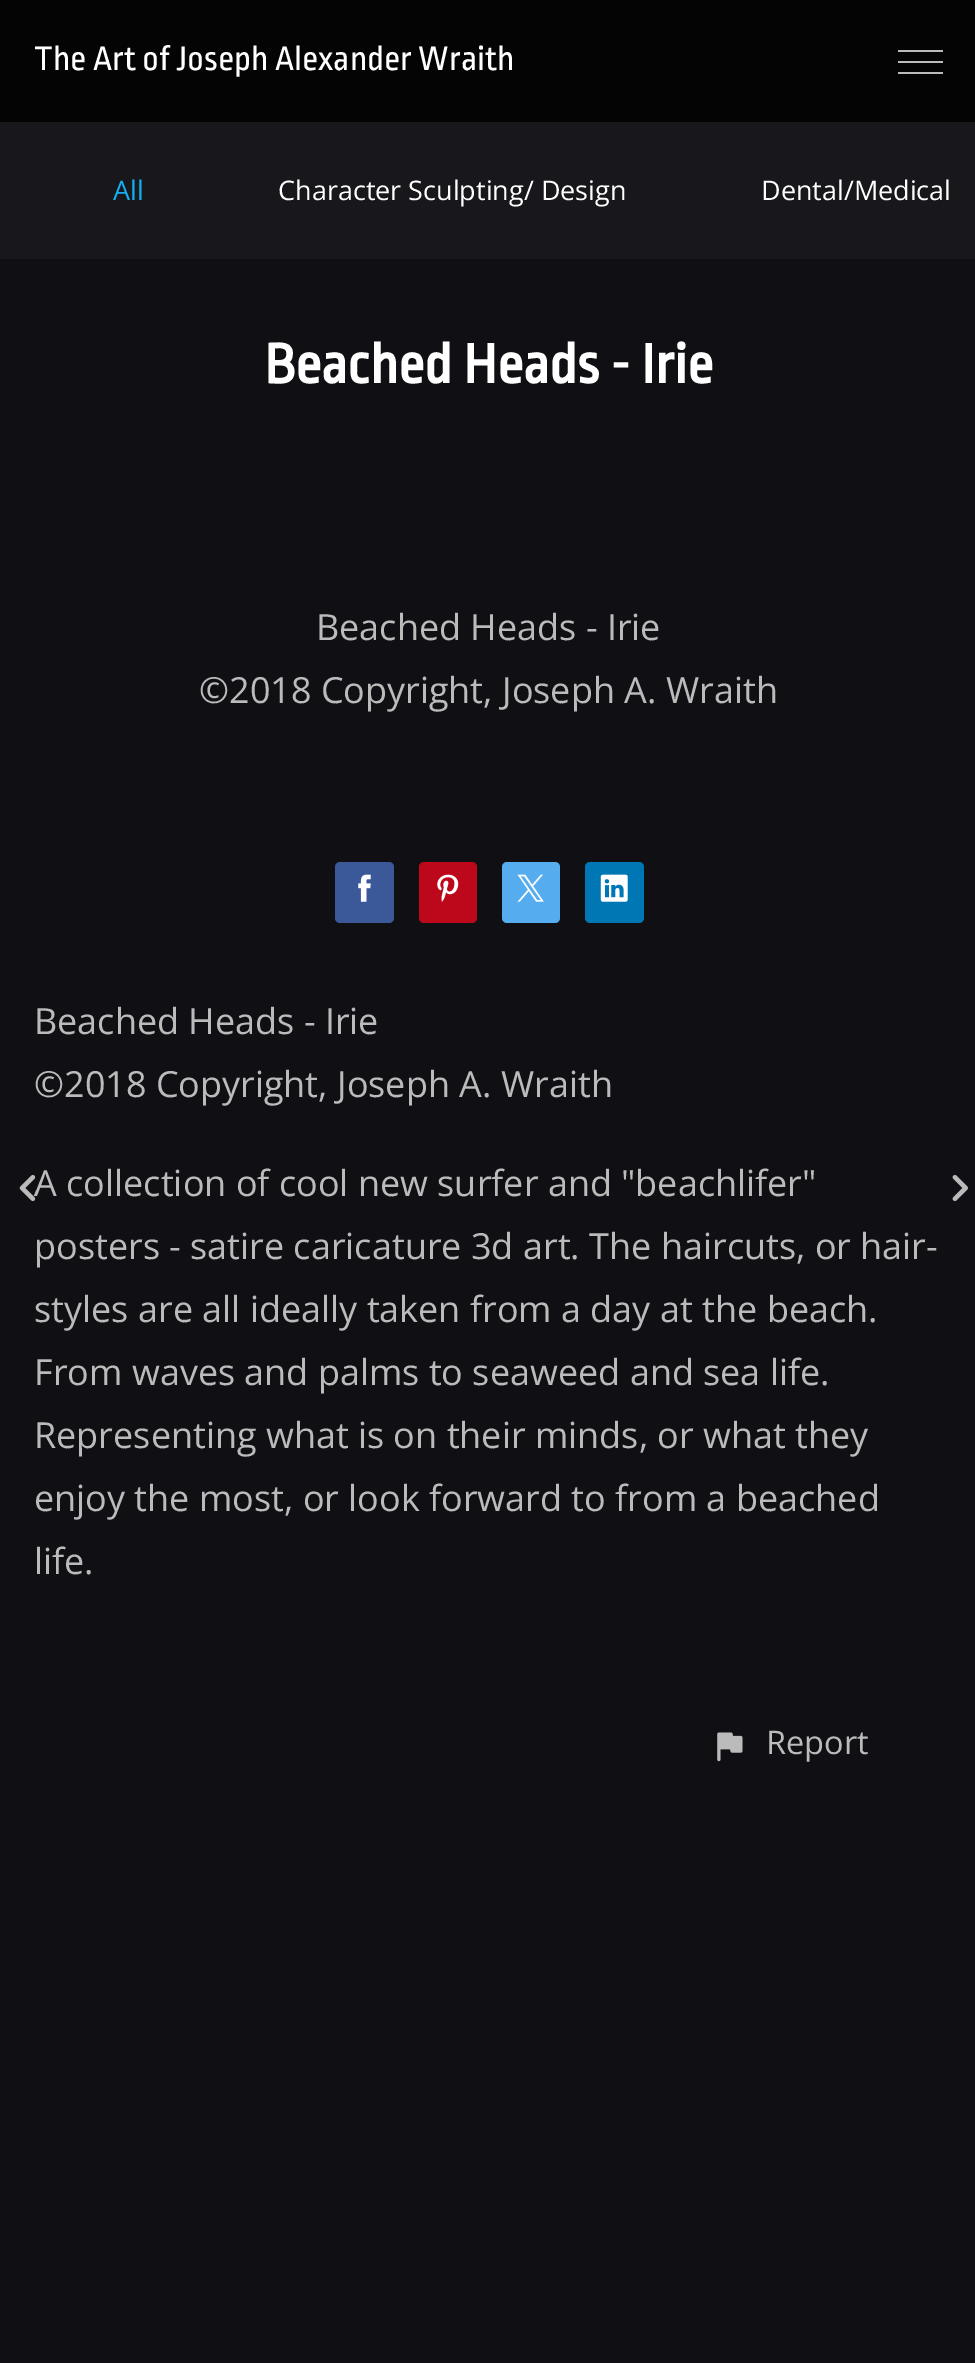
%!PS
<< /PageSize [975 2363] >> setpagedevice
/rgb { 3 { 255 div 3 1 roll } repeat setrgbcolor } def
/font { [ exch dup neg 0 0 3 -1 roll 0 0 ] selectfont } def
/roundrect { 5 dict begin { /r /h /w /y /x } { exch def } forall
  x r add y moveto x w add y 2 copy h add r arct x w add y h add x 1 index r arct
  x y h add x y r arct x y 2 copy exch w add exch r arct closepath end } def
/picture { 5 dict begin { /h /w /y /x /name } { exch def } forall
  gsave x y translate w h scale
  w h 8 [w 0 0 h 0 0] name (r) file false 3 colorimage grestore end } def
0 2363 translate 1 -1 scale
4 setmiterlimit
16 16 20 rgb
0 0 975 2363 rectfill
[
  [0 0 975 122 4 4 5]
  [898 50 45 2 187 187 187]
  [898 61 45 2 187 187 187]
  [898 72 45 2 187 187 187]
  [0 122 975 137 24 24 28]
] { aload pop rgb rectfill } forall
59 89 153 rgb
335 862 59 61 5 roundrect fill
(img/2.rgb) 358 874 13 28 picture
189 8 28 rgb
419 862 58 61 5 roundrect fill
(img/3.rgb) 437 874 22 28 picture
85 172 238 rgb
502 862 58 61 5 roundrect fill
(img/4.rgb) 517 874 27 28 picture
0 119 181 rgb
585 862 59 61 5 roundrect fill
(img/5.rgb) 600 874 28 28 picture
(img/6.rgb) 717 1732 26 30 picture
(img/7.rgb) 952 1175 16 26 picture
/RopaSans-Regular 36 font
255 255 255 rgb
34 70 moveto (The Art of Joseph Alexander Wraith) show
/OpenSans-Regular 27 font
19 175 240 rgb
113 200 moveto (All) show
255 255 255 rgb
278 200 moveto (Character Sculpting/ Design) show
761 200 moveto (Dental/Medical) show
/RopaSans-Bold 58.5 font
264 383 moveto (Beached Heads - Irie) show
/OpenSans-Regular 36 font
187 187 187 rgb
[
  [(Beached Heads - Irie) 316 640]
  [(©2018 Copyright, Joseph A. Wraith) 199 703]
  [(Beached Heads - Irie) 34 1034]
  [(©2018 Copyright, Joseph A. Wraith) 34 1097]
  [(A collection of cool new surfer and "beachlifer") 34 1196]
] { aload pop moveto show } forall
(img/1.rgb) 19 1174 17 28 picture
[
  [(posters - satire caricature 3d art. The haircuts, or hair-) 34 1259]
  [(styles are all ideally taken from a day at the beach.) 34 1322]
  [(From waves and palms to seaweed and sea life.) 34 1385]
  [(Representing what is on their minds, or what they) 34 1448]
  [(enjoy the most, or look forward to from a beached) 34 1511]
  [(life.) 34 1574]
] { aload pop moveto show } forall
/OpenSans-Regular 32.5 font
766 1754 moveto (Report) show
showpage
